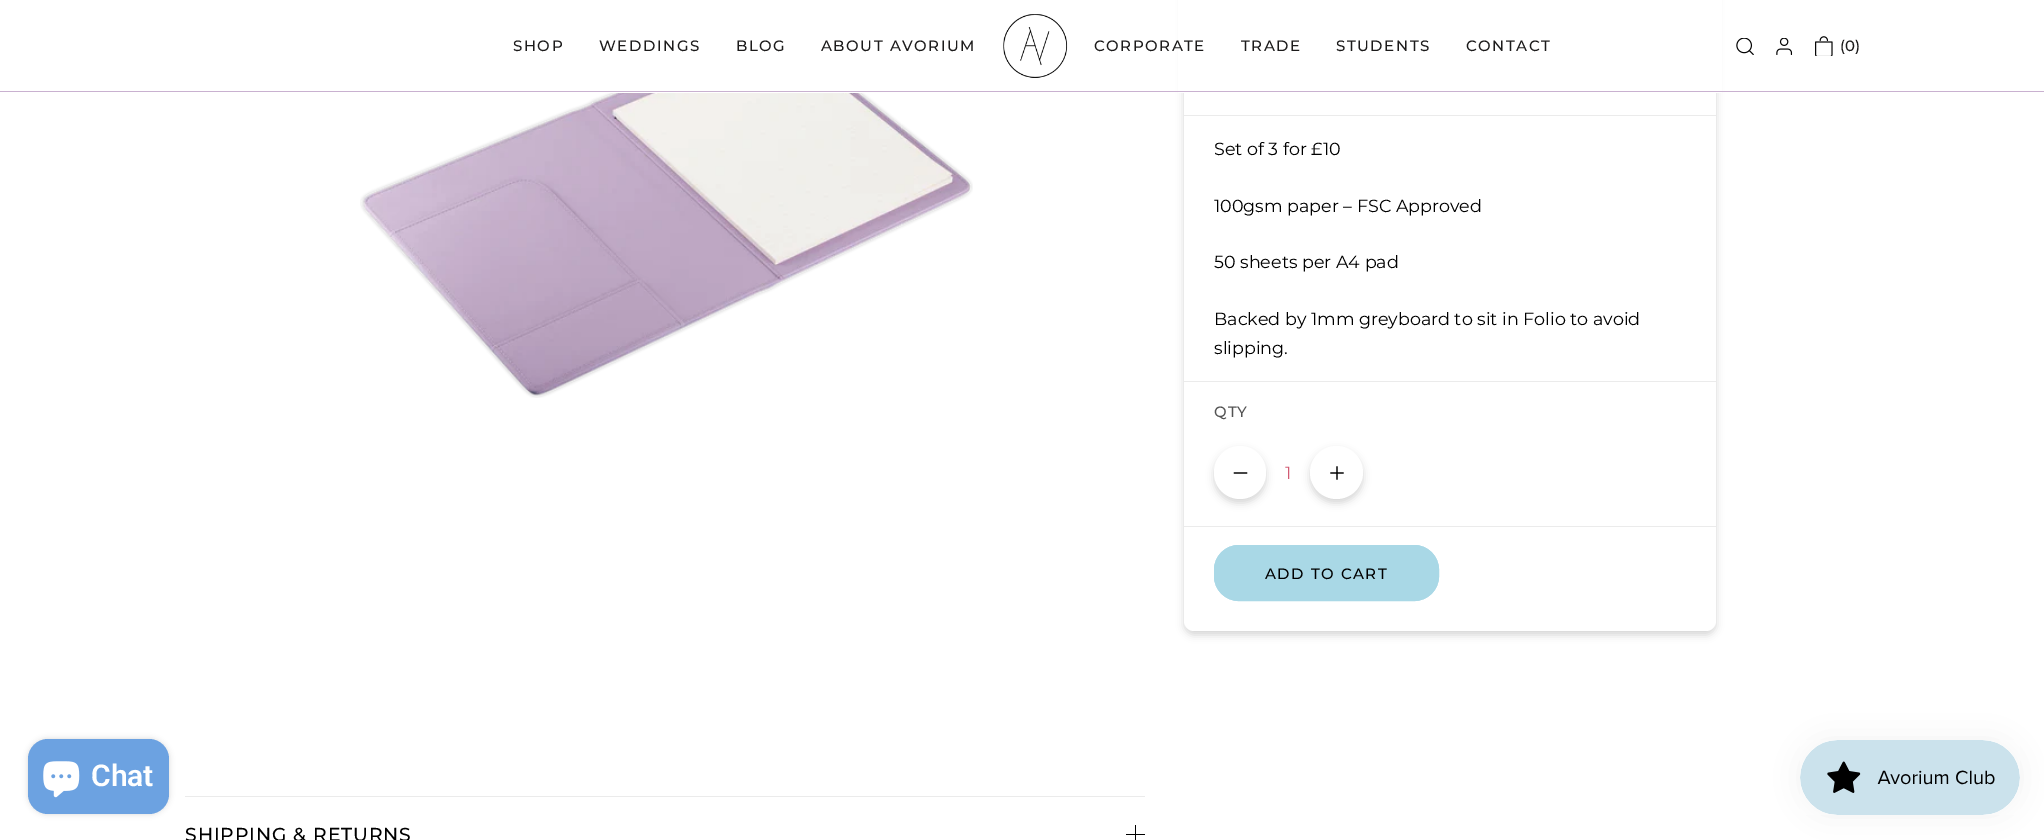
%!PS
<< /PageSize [2044 840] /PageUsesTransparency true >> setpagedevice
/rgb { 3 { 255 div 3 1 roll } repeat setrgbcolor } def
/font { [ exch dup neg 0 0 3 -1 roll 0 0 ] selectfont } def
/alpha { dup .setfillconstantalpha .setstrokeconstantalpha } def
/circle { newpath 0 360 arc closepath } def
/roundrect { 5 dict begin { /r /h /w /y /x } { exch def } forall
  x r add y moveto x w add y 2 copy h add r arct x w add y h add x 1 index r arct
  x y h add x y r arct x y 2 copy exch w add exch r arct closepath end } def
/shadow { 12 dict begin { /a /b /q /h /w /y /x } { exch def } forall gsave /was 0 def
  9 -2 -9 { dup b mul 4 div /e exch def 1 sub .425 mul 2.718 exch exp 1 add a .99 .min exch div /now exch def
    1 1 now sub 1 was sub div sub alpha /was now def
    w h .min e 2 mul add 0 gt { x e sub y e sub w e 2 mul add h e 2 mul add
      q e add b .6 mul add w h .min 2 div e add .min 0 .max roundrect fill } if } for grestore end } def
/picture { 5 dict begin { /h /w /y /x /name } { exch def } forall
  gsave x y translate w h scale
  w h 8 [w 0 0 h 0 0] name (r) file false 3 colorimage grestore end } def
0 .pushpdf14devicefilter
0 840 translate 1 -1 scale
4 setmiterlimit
255 255 255 rgb
0 0 2044 840 rectfill
0 0 0 rgb
28 739 141 75 20 3 0.15 shadow
108 162 225 rgb
28 739 141 75 20 roundrect fill
(img/1.rgb) 43 761 37 37 picture
0 0 0 rgb
1184 -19 532 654 10 4 0.16 shadow
255 255 255 rgb
1184 -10 532 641 10 roundrect fill
1178 0 544 93 rectfill
201 177 208 rgb
0 91 2044 1 rectfill
(img/2.rgb) 1003 14 65 64 picture
(img/3.rgb) 1736 38 18 17 picture
(img/4.rgb) 1776 38 17 17 picture
(img/5.rgb) 1815 36 18 20 picture
(img/6.rgb) 360 93 613 305 picture
[
  [1184 115 532 1 235 235 235]
  [1184 381 532 1 235 235 235]
  [1184 526 532 1 235 235 235]
] { aload pop rgb rectfill } forall
0 0 0 rgb
1214 450 52 53 26 4 0.16 shadow
255 255 255 rgb
1214 446 52 53 26 roundrect fill
0 0 0 rgb
1.3 setlinewidth
2 setlinecap
1234.5 473 moveto 1246.5 473 lineto stroke
1310 450 53 53 26.5 4 0.16 shadow
255 255 255 rgb
1336.5 472.5 26.5 circle fill
0 0 0 rgb
1337 467 moveto 1337 479 lineto 1331 473 moveto 1343 473 lineto stroke
169 216 230 rgb
1 setlinewidth
0 setlinecap
1214.5 545.5 224 55 24.5 roundrect stroke
1214 545 225 56 25 roundrect fill
[
  [185 796 960 1 235 235 235]
  [1135 825 1 15 0 0 0]
  [1126 834 19 1 0 0 0]
] { aload pop rgb rectfill } forall
1800 740 220 75 37.5 15.5 0.05 shadow
(img/7.rgb) 1800 740 220 75 picture
/Roboto-SemiBold 30 font
255 255 255 rgb
91 786 moveto (Chat) show
/Montserrat-Medium 15 font
28 27 27 rgb
513 51 moveto 1.5 0 (SHOP) ashow
599 51 moveto 1.5 0 (WEDDINGS) ashow
736 51 moveto 1.5 0 (BLOG) ashow
821 51 moveto 1.5 0 (ABOUT AVORIUM) ashow
1094 51 moveto 1.5 0 (CORPORATE) ashow
1241 51 moveto 1.5 0 (TRADE) ashow
1336 51 moveto 1.5 0 (STUDENTS) ashow
1466 51 moveto 1.5 0 (CONTACT) ashow
1840 51 moveto (\(0\)) show
/Montserrat-Regular 17.5 font
0 0 0 rgb
[
  [(Set of 3 for £10) 1214 155]
  [(100gsm paper – FSC Approved) 1214 212]
  [(50 sheets per A4 pad) 1214 268]
  [(Backed by 1mm greyboard to sit in Folio to avoid) 1214 325]
  [(slipping.) 1214 354]
] { aload pop moveto show } forall
/Montserrat-Medium 15 font
83 83 83 rgb
1214 417 moveto 1 0 (QTY) ashow
/Montserrat-Regular 17.5 font
210 91 115 rgb
1285 479 moveto (1) show
/Montserrat-Medium 15 font
0 0 0 rgb
1265 579 moveto 1.5 0 (ADD TO CART) ashow
/Montserrat-Medium 18.75 font
185 841 moveto 0.9 0 (SHIPPING & RETURNS) ashow
.poppdf14devicefilter showpage
